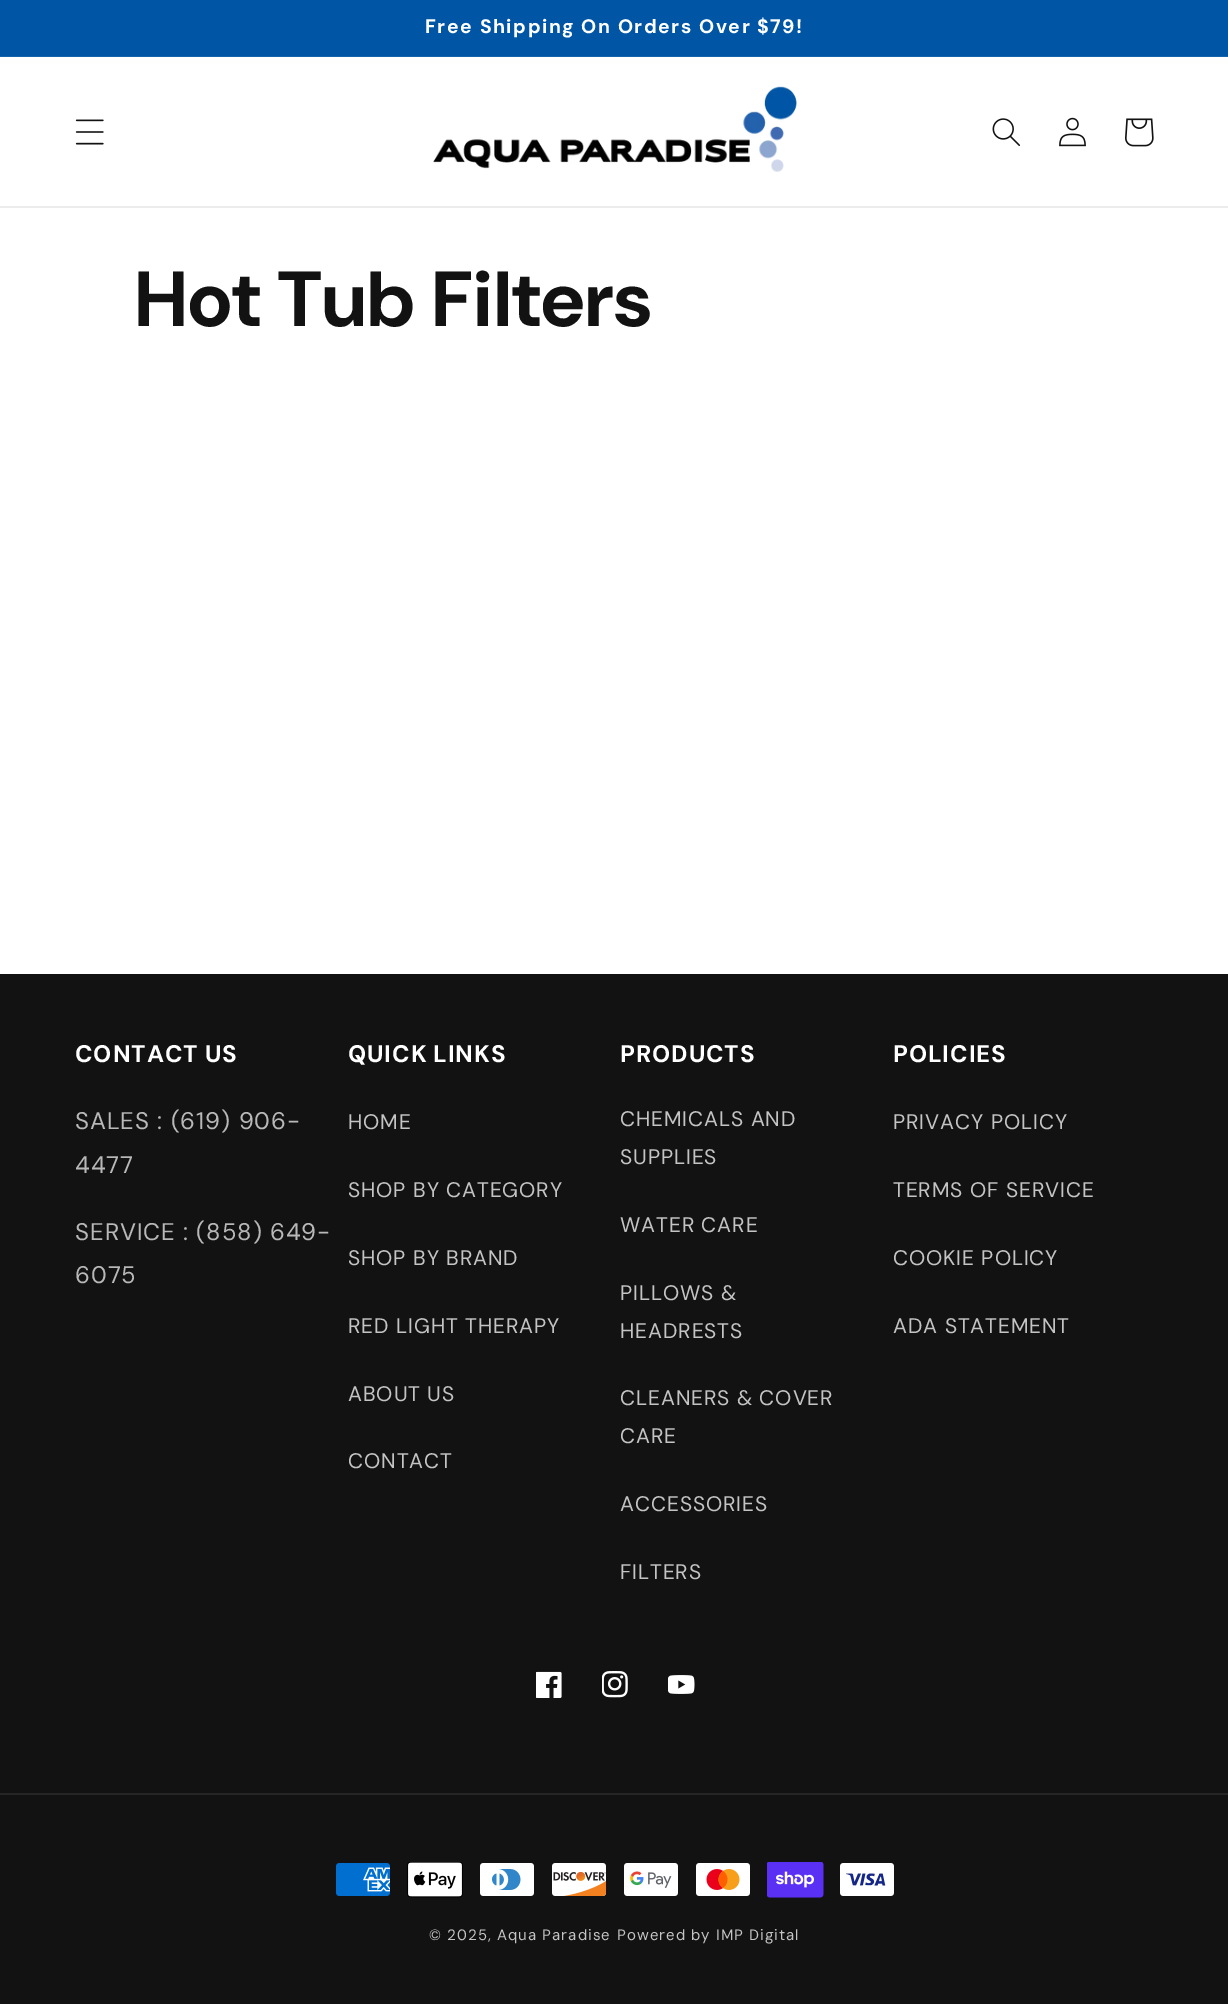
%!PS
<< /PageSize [1228 2004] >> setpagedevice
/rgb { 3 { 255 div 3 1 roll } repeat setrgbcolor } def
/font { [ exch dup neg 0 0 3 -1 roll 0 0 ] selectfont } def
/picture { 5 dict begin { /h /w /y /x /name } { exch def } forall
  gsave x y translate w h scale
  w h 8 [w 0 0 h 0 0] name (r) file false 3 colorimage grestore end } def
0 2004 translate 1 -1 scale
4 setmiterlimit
255 255 255 rgb
0 0 1228 2004 rectfill
[
  [0 0 1228 56 0 86 164]
  [0 56 1228 1 20 100 171]
  [0 206 1228 2 236 236 236]
] { aload pop rgb rectfill } forall
(img/1.rgb) 75 119 29 26 picture
(img/2.rgb) 433 86 364 86 picture
(img/3.rgb) 992 118 28 28 picture
(img/4.rgb) 1059 117 27 30 picture
(img/5.rgb) 1125 118 29 29 picture
18 18 18 rgb
0 974 1228 1030 rectfill
(img/6.rgb) 536 1671 26 27 picture
(img/7.rgb) 602 1671 26 27 picture
(img/8.rgb) 668 1675 27 19 picture
37 37 37 rgb
0 1793 1228 2 rectfill
(img/9.rgb) 336 1863 54 33 picture
(img/10.rgb) 407 1862 56 36 picture
(img/11.rgb) 480 1863 54 33 picture
(img/12.rgb) 552 1863 55 33 picture
(img/13.rgb) 624 1863 54 33 picture
(img/14.rgb) 696 1863 54 33 picture
(img/15.rgb) 767 1862 57 36 picture
(img/16.rgb) 840 1863 54 33 picture
/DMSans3-Bold 19.5 font
255 255 255 rgb
425 33 moveto 1.5 0 (Free Shipping On Orders Over $79!) ashow
/DMSans-Bold 78 font
18 18 18 rgb
135 326 moveto 0.9 0 (Hot Tub Filters) ashow
/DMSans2-Bold 24 font
255 255 255 rgb
75 1062 moveto 0.9 0 (CONTACT US) ashow
/DMSans-Regular 24 font
184 184 184 rgb
75 1129 moveto 0.9 0 (SALES : \(619\) 906-) ashow
75 1173 moveto 0.9 0 (4477) ashow
75 1240 moveto 0.9 0 (SERVICE : \(858\) 649-) ashow
75 1283 moveto 0.9 0 (6075) ashow
/DMSans2-Bold 24 font
255 255 255 rgb
348 1062 moveto -1 0 32 0.9 0 (QUICK LINKS) awidthshow
/DMSans2-Regular 21 font
196 196 196 rgb
348 1129 moveto 0.9 0 (HOME) ashow
348 1197 moveto 0.9 0 (SHOP BY CATEGORY) ashow
348 1265 moveto 0.9 0 (SHOP BY BRAND) ashow
348 1333 moveto 0.9 0 (RED LIGHT THERAPY) ashow
348 1401 moveto 0.9 0 (ABOUT US) ashow
348 1468 moveto 0.9 0 (CONTACT) ashow
/DMSans2-Bold 24 font
255 255 255 rgb
620 1062 moveto 0.9 0 (PRODUCTS) ashow
/DMSans2-Regular 21 font
196 196 196 rgb
620 1126 moveto 0.9 0 (CHEMICALS AND) ashow
620 1164 moveto 0.9 0 (SUPPLIES) ashow
620 1232 moveto 0.9 0 (WATER CARE) ashow
620 1300 moveto 0.9 0 (PILLOWS &) ashow
620 1338 moveto 0.9 0 (HEADRESTS) ashow
620 1405 moveto 0.9 0 (CLEANERS & COVER) ashow
620 1443 moveto 0.9 0 (CARE) ashow
620 1511 moveto 0.9 0 (ACCESSORIES) ashow
620 1579 moveto 0.9 0 (FILTERS) ashow
/DMSans2-Bold 24 font
255 255 255 rgb
893 1062 moveto 0.9 0 (POLICIES) ashow
/DMSans2-Regular 21 font
196 196 196 rgb
893 1129 moveto 0.9 0 (PRIVACY POLICY) ashow
893 1197 moveto 0.9 0 (TERMS OF SERVICE) ashow
893 1265 moveto 0.9 0 (COOKIE POLICY) ashow
893 1333 moveto 0.9 0 (ADA STATEMENT) ashow
/DMSans-Regular 15 font
429 1940 moveto 1.05 0 (© 2025, Aqua Paradise) ashow
617 1940 moveto 1.05 0 (Powered by IMP Digital) ashow
showpage
